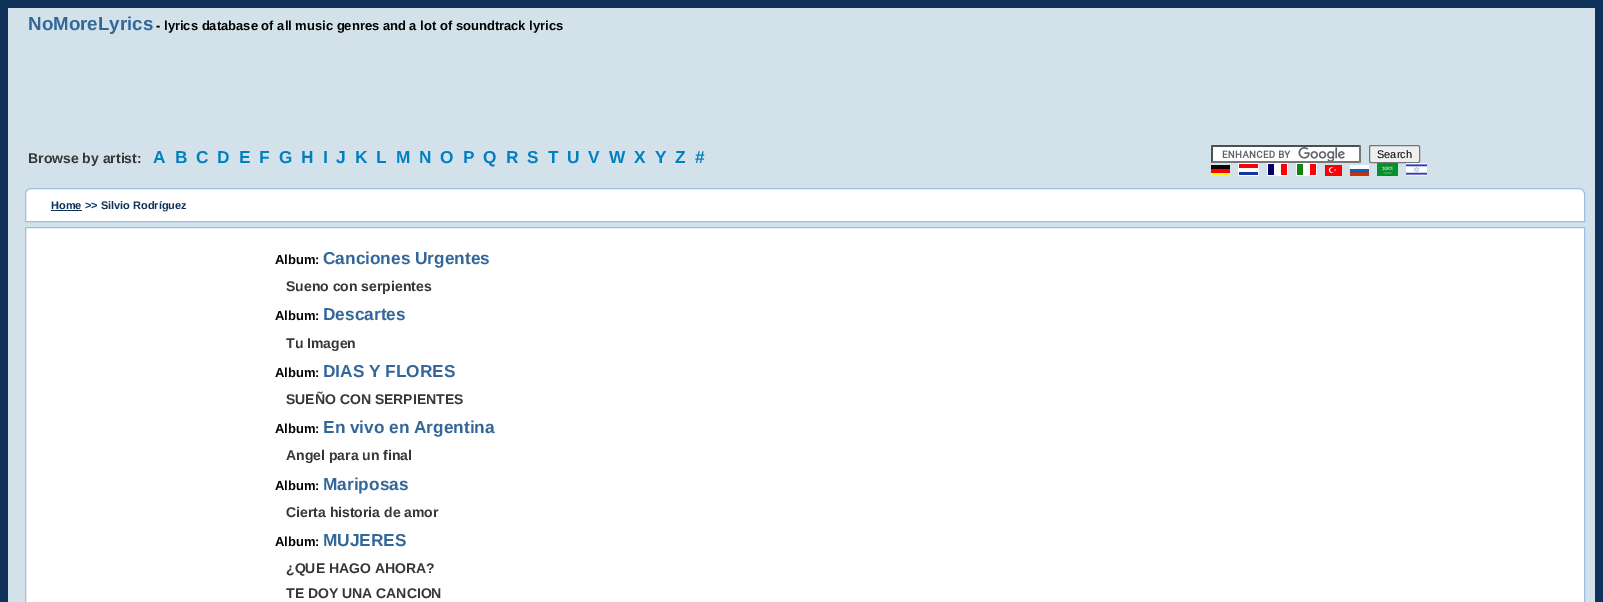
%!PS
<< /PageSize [1603 602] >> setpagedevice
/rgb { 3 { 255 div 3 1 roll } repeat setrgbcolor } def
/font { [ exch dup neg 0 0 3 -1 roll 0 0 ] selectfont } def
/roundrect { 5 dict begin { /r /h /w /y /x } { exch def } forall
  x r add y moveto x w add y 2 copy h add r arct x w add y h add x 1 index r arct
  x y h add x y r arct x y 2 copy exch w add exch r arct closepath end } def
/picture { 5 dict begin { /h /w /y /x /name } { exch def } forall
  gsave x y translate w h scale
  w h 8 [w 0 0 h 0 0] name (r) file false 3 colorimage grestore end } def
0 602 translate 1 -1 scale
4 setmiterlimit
14 50 89 rgb
0 0 1603 602 rectfill
211 226 234 rgb
8 8 1587 594 rectfill
255 255 255 rgb
1211 145 150 18 rectfill
(img/1.rgb) 1222 147 123 14 picture
79 79 79 rgb
1211 145 moveto 1361 145 lineto 1359 147 lineto 1213 147 lineto closepath fill
118 118 118 rgb
1361 145 moveto 1361 163 lineto 1359 161 lineto 1359 147 lineto closepath fill
1361 163 moveto 1211 163 lineto 1213 161 lineto 1359 161 lineto closepath fill
79 79 79 rgb
1211 163 moveto 1211 145 lineto 1213 147 lineto 1213 161 lineto closepath fill
239 239 239 rgb
1369.5 145.5 50 17 1.5 roundrect gsave fill grestore
118 118 118 rgb
stroke
(img/2.rgb) 1211 165 19 11 picture
(img/3.rgb) 1238 163 21 13 picture
(img/4.rgb) 1267 163 21 13 picture
(img/5.rgb) 1296 163 21 13 picture
(img/6.rgb) 1325 165 17 11 picture
(img/7.rgb) 1350 165 19 11 picture
(img/8.rgb) 1377 163 21 13 picture
(img/9.rgb) 1406 163 21 13 picture
255 255 255 rgb
31 188.5 moveto 1579 188.5 lineto 1582 188.5 1584.5 191 1584.5 194 curveto 1584.5 221.5 lineto 25.5 221.5 lineto 25.5 194 lineto 25.5 191 28 188.5 31 188.5 curveto closepath gsave fill grestore
156 190 230 rgb
stroke
14 50 89 rgb
51 210 31 1 rectfill
255 255 255 rgb
25.5 227.5 moveto 1584.5 227.5 lineto 1584.5 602.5 lineto 25.5 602.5 lineto closepath gsave fill grestore
156 190 230 rgb
stroke
/LiberationSans-Bold 18.75 font
51 102 153 rgb
28 30 moveto (NoMoreLyrics) show
/LiberationSans-Bold 13 font
0 0 0 rgb
156 30 moveto (- lyrics database of all music genres and a lot of soundtrack lyrics) show
/LiberationSans-Bold 14 font
54 54 54 rgb
28 163 moveto (Browse by artist:) show
/LiberationSans-Bold 17.25 font
0 128 193 rgb
153 163 moveto 5 0 (A) ashow
175 163 moveto 5 0 (B) ashow
196 163 moveto 5 0 (C) ashow
217 163 moveto 5 0 (D) ashow
239 163 moveto 5 0 (E) ashow
259 163 moveto 5 0 (F) ashow
279 163 moveto 5 0 (G) ashow
301 163 moveto 5 0 (H) ashow
323 163 moveto 5 0 (I) ashow
336 163 moveto 5 0 (J) ashow
355 163 moveto 5 0 (K) ashow
376 163 moveto 5 0 (L) ashow
396 163 moveto 5 0 (M) ashow
419 163 moveto 5 0 (N) ashow
440 163 moveto 5 0 (O) ashow
463 163 moveto 5 0 (P) ashow
483 163 moveto 5 0 (Q) ashow
506 163 moveto 5 0 (R) ashow
527 163 moveto 5 0 (S) ashow
548 163 moveto 5 0 (T) ashow
567 163 moveto 5 0 (U) ashow
588 163 moveto 5 0 (V) ashow
609 163 moveto 5 0 (W) ashow
634 163 moveto 5 0 (X) ashow
655 163 moveto 5 0 (Y) ashow
675 163 moveto 5 0 (Z) ashow
695 163 moveto 5 0 (#) ashow
/LiberationSans-Regular 11 font
0 0 0 rgb
1377 158 moveto (Search) show
/LiberationSans-Bold 11 font
14 50 89 rgb
51 209 moveto (Home >> Silvio Rodríguez) show
/LiberationSans-Bold 13 font
0 0 0 rgb
275 264 moveto (Album:) show
/LiberationSans-Bold 17.25 font
51 102 153 rgb
323 264 moveto (Canciones Urgentes) show
/LiberationSans-Bold 14 font
54 54 54 rgb
286 291 moveto (Sueno con serpientes) show
/LiberationSans-Bold 13 font
0 0 0 rgb
275 320 moveto (Album:) show
/LiberationSans-Bold 17.25 font
51 102 153 rgb
323 320 moveto (Descartes) show
/LiberationSans-Bold 14 font
54 54 54 rgb
286 348 moveto (Tu Imagen) show
/LiberationSans-Bold 13 font
0 0 0 rgb
275 377 moveto (Album:) show
/LiberationSans-Bold 17.25 font
51 102 153 rgb
323 377 moveto (DIAS Y FLORES) show
/LiberationSans-Bold 14 font
54 54 54 rgb
286 404 moveto (SUEÑO CON SERPIENTES) show
/LiberationSans-Bold 13 font
0 0 0 rgb
275 433 moveto (Album:) show
/LiberationSans-Bold 17.25 font
51 102 153 rgb
323 433 moveto (En vivo en Argentina) show
/LiberationSans-Bold 14 font
54 54 54 rgb
286 460 moveto (Angel para un final) show
/LiberationSans-Bold 13 font
0 0 0 rgb
275 490 moveto (Album:) show
/LiberationSans-Bold 17.25 font
51 102 153 rgb
323 490 moveto (Mariposas) show
/LiberationSans-Bold 14 font
54 54 54 rgb
286 517 moveto (Cierta historia de amor) show
/LiberationSans-Bold 13 font
0 0 0 rgb
275 546 moveto (Album:) show
/LiberationSans-Bold 17.25 font
51 102 153 rgb
323 546 moveto (MUJERES) show
/LiberationSans-Bold 14 font
54 54 54 rgb
286 573 moveto (¿QUE HAGO AHORA?) show
286 598 moveto (TE DOY UNA CANCION) show
showpage
